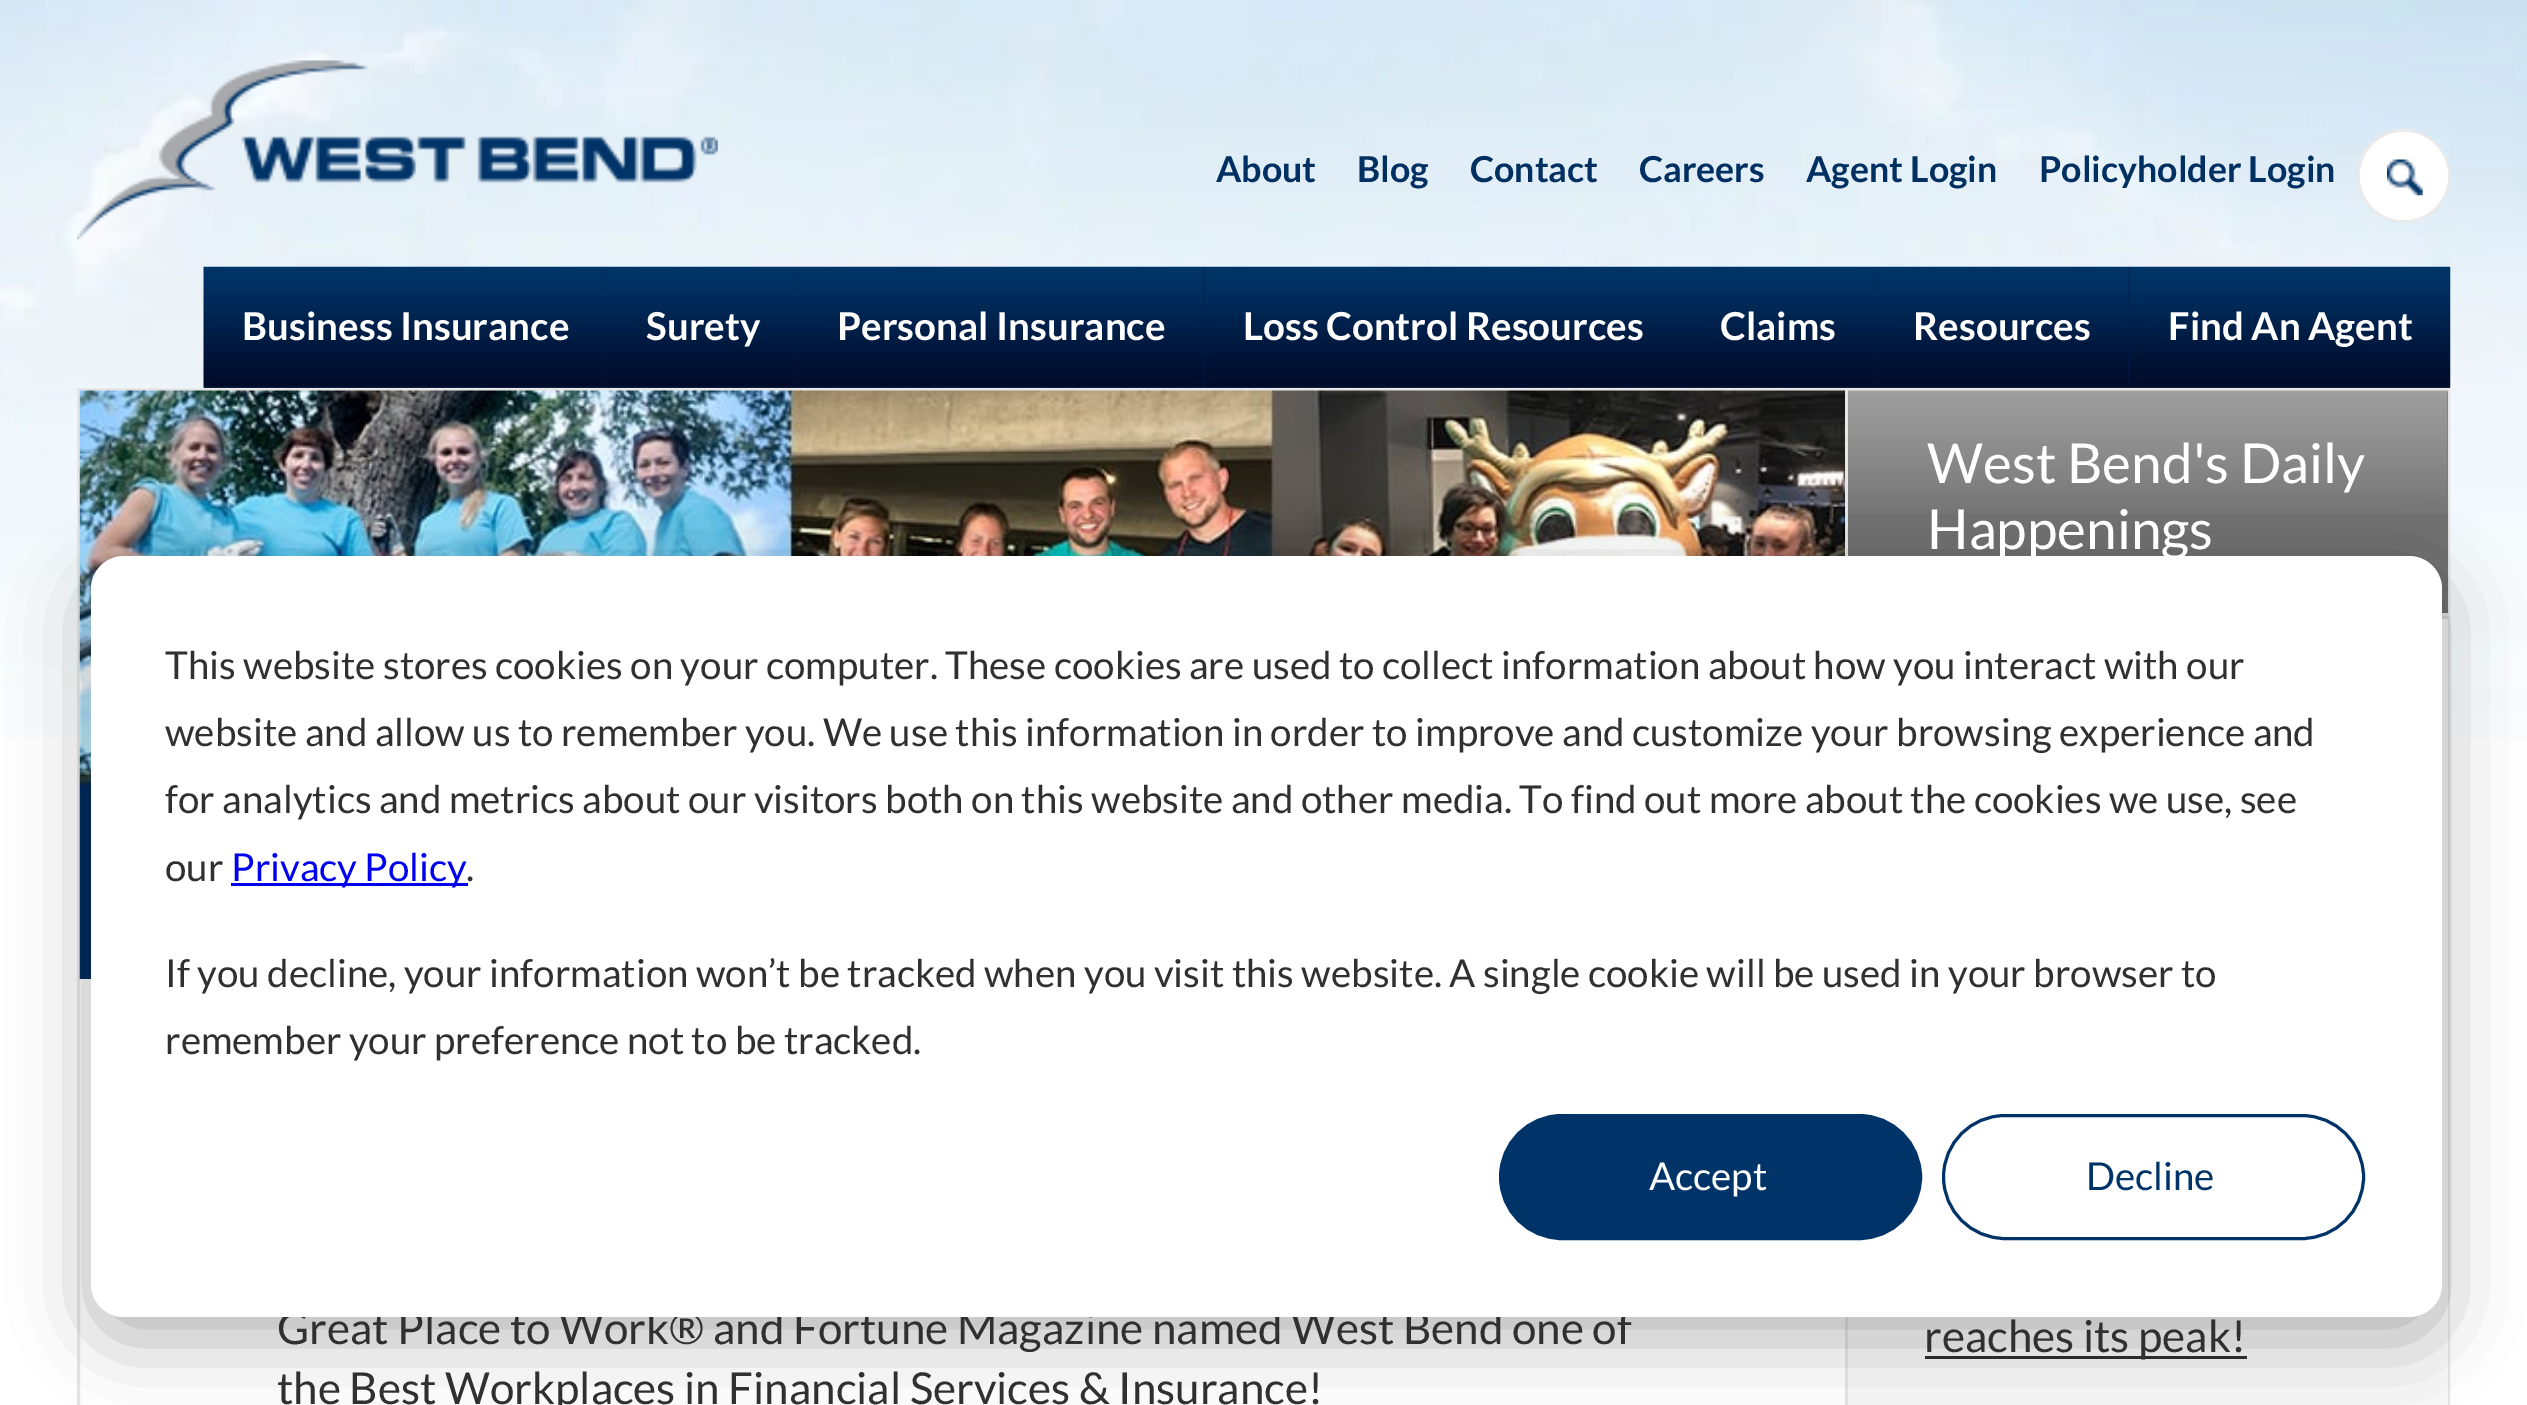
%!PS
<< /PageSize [2527 1405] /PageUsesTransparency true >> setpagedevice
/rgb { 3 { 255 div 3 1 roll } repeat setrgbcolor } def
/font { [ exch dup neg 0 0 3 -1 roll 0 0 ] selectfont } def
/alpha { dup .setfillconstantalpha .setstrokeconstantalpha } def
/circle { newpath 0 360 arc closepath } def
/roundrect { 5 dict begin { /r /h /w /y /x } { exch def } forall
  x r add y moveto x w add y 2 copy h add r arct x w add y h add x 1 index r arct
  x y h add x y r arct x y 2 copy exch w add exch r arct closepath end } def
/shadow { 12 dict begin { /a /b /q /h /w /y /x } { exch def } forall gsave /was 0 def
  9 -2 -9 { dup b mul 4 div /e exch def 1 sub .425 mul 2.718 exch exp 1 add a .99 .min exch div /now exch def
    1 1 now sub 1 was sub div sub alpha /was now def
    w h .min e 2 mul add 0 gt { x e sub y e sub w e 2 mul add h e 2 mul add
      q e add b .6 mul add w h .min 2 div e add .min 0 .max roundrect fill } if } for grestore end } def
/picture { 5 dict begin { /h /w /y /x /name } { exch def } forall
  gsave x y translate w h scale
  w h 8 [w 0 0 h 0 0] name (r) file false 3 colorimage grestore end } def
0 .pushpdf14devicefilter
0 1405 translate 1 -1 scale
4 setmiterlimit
255 255 255 rgb
0 0 2527 1405 rectfill
(img/1.rgb) 0 0 2527 388 picture
(img/2.rgb) 77 60 641 180 picture
2358.5 130.5 90 91 45 roundrect gsave fill grestore
234 234 235 rgb
3 setlinewidth
stroke
255 255 255 rgb
2404 176 44 circle fill
(img/3.rgb) 2387 159 36 37 picture
1 29 74 rgb
608 267 190 121 rectfill
(img/5.rgb) 607 266 191 122 picture
204 267 404 121 rectfill
(img/4.rgb) 203 266 405 122 picture
(img/7.rgb) 1204 266 479 122 picture
798 267 407 121 rectfill
(img/6.rgb) 797 266 408 122 picture
(img/10.rgb) 2128 266 323 122 picture
1683 267 446 121 rectfill
(img/8.rgb) 1683 266 193 122 picture
(img/9.rgb) 1875 266 254 122 picture
(img/11.rgb) 0 387 2527 351 picture
230 230 230 rgb
78.5 389.5 2370 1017 rectstroke
(img/12.rgb) 79 390 1767 589 picture
[
  [1848 619 600 786 248 248 248]
  [1845 391 3 1014 230 230 230]
  [1848 391 600 222 113 113 113]
] { aload pop rgb rectfill } forall
(img/13.rgb) 1848 390 600 124 picture
[
  [2442 613 6 3 231 231 231]
  [2442 616 6 3 215 215 215]
  [1925 1356 322 3 48 48 48]
] { aload pop rgb rectfill } forall
gsave
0 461 moveto 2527 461 lineto 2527 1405 lineto 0 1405 lineto closepath 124 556 moveto 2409 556 lineto 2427 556 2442 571 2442 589 curveto 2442 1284 lineto 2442 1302 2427 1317 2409 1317 curveto 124 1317 lineto 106 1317 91 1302 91 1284 curveto 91 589 lineto 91 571 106 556 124 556 curveto closepath eoclip newpath
0 0 0 rgb
91 578 2351 761 33 38.5 0.28 shadow
grestore
/Lato-Bold 35.75 font
0 47 97 rgb
[
  [(About) 1216 182]
  [(Blog) 1357 182]
  [(Contact) 1470 182]
  [(Careers) 1639 182]
  [(Agent Login) 1806 182]
  [(Policyholder Login) 2039 182]
] { aload pop moveto show } forall
/Lato-Bold 38.5 font
255 255 255 rgb
[
  [(Business Insurance) 242 340]
  [(Surety) 646 340]
  [(Personal Insurance) 837 340]
  [(Loss Control Resources) 1243 340]
  [(Claims) 1720 340]
  [(Resources) 1913 340]
  [(Find An Agent) 2168 340]
] { aload pop moveto show } forall
/Lato-Regular 44 font
48 48 48 rgb
277 1344 moveto (Great Place to Work® and Fortune Magazine named West Bend one of) show
277 1404 moveto (the Best Workplaces in Financial Services & Insurance!) show
/Lato-Regular 55 font
255 255 255 rgb
1927 483 moveto (West Bend's Daily) show
1927 549 moveto (Happenings) show
/Lato-Regular 44 font
48 48 48 rgb
1924 1352 moveto (reaches its peak!) show
255 255 255 rgb
91 556 2351 761 33 roundrect fill
/Lato-Regular 38.5 font
48 48 48 rgb
[
  [(This website stores cookies on your computer. These cookies are used to collect information about how you interact with our) 165 679]
  [(website and allow us to remember you. We use this information in order to improve and customize your browsing experience and) 165 746]
  [(for analytics and metrics about our visitors both on this website and other media. To find out more about the cookies we use, see) 165 813]
  [(our) 165 881]
] { aload pop moveto show } forall
0 0 238 rgb
231 883 237 3 rectfill
231 881 moveto (Privacy Policy) show
48 48 48 rgb
[
  [(.) 466 881]
  [(If you decline, your information won’t be tracked when you visit this website. A single cookie will be used in your browser to) 165 987]
  [(remember your preference not to be tracked.) 165 1054]
] { aload pop moveto show } forall
0 52 104 rgb
1500.5 1115.5 420 123 61.5 roundrect gsave fill grestore
stroke
255 255 255 rgb
1649 1190 moveto (Accept) show
0 52 104 rgb
1943.5 1115.5 420 123 61.5 roundrect stroke
2086 1190 moveto (Decline) show
.poppdf14devicefilter showpage
